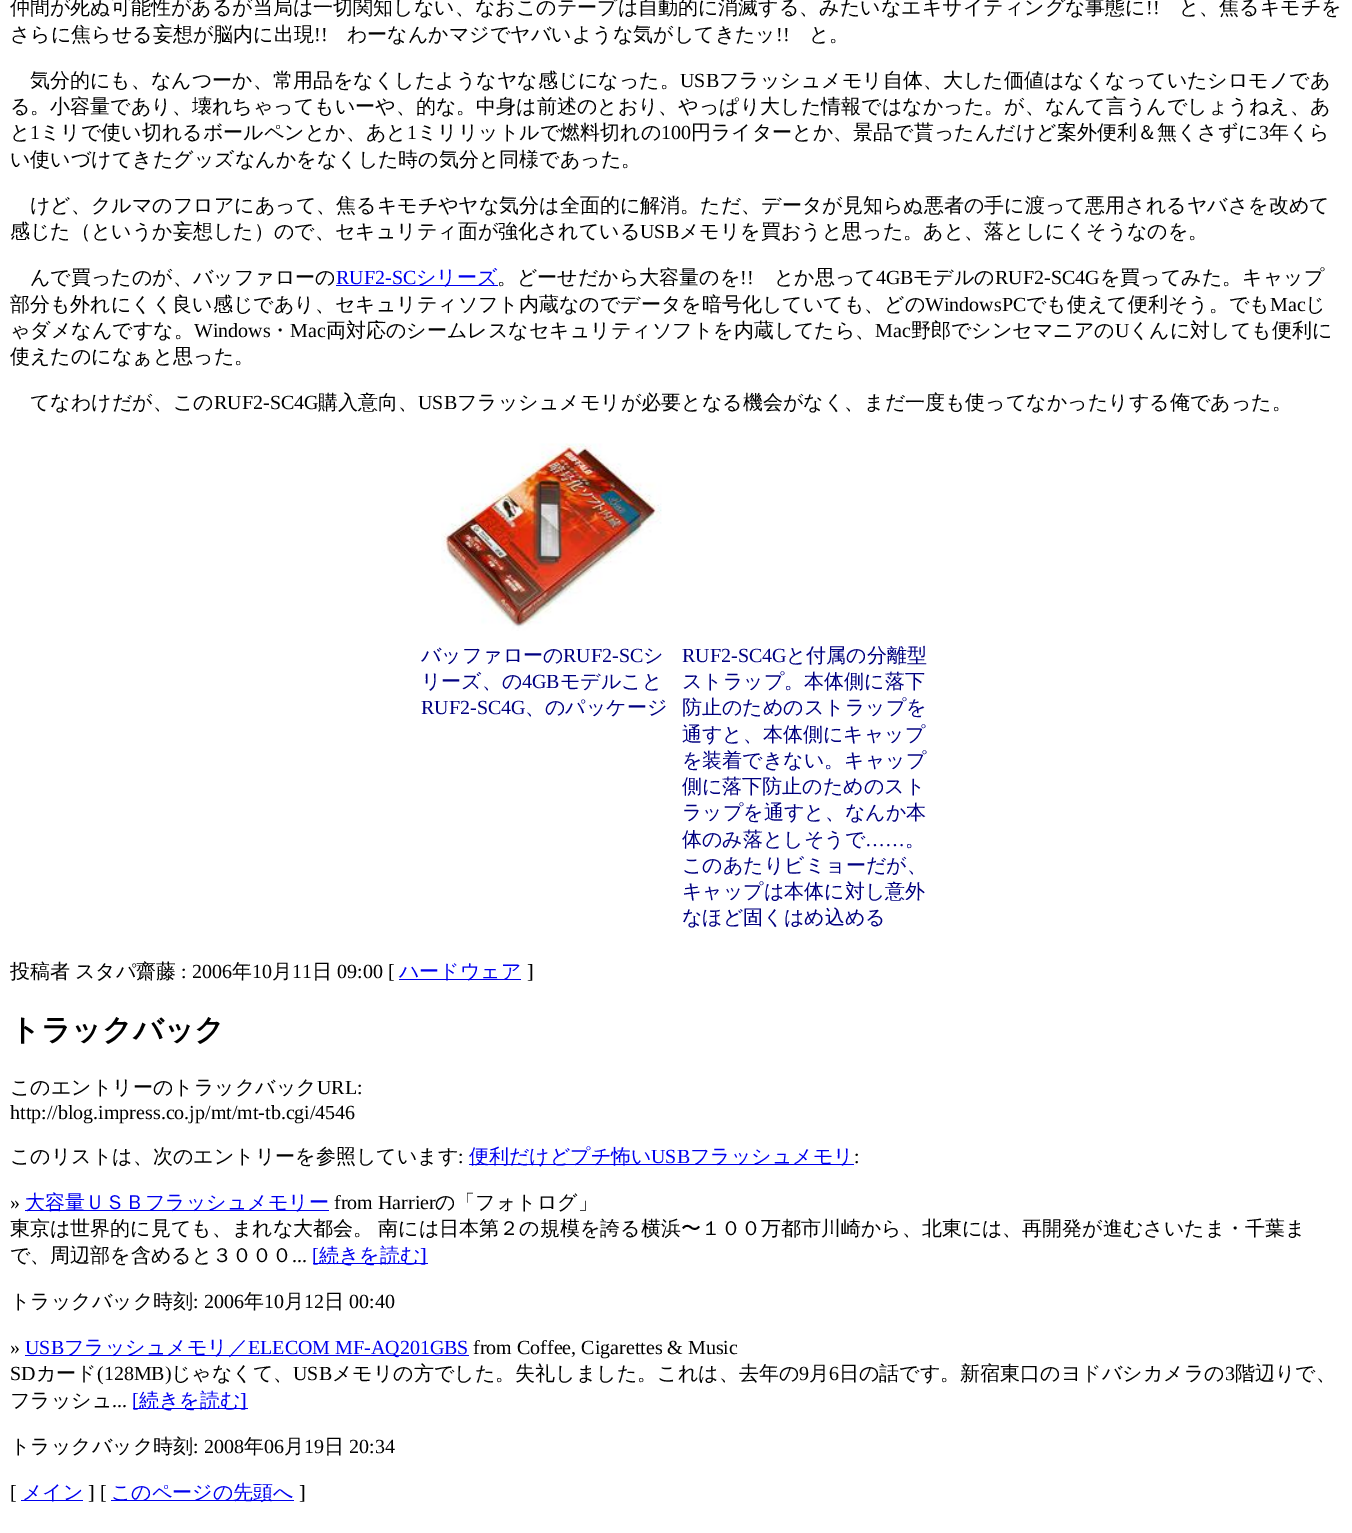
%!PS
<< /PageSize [1352 1533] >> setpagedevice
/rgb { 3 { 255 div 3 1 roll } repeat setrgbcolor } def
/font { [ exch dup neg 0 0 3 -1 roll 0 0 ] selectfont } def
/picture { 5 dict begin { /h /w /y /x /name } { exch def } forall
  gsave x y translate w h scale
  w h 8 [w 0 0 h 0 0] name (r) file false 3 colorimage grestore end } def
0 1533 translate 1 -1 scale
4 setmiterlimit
255 255 255 rgb
0 0 1352 1533 rectfill
0 0 238 rgb
336 285 162 1 rectfill
(img/1.rgb) 441 443 221 188 picture
[
  [399 979 122 1 0 0 238]
  [469 1164 385 1 0 0 238]
  [25 1210 304 1 0 0 238]
  [313 1263 115 1 0 0 238]
  [25 1355 444 1 0 0 238]
  [133 1408 115 1 0 0 238]
  [21 1500 62 1 0 0 238]
  [111 1500 183 1 0 0 238]
] { aload pop rgb rectfill } forall
/WenQuanYiZenHei-Medium 20 font
0 0 0 rgb
10 14 moveto (仲間が死ぬ可能性があるが当局は一切関知しない、なおこのテープは自動的に消滅する、みたいなエキサイティングな事態に) show
/LiberationSerif-Regular 20 font
1146 14 moveto (!!) show
/WenQuanYiZenHei-Medium 20 font
1179 14 moveto (と、焦るキモチを) show
10 41 moveto (さらに焦らせる妄想が脳内に出現) show
/LiberationSerif-Regular 20 font
314 41 moveto (!!) show
/WenQuanYiZenHei-Medium 20 font
347 41 moveto (わーなんかマジでヤバいような気がしてきたッ) show
/LiberationSerif-Regular 20 font
776 41 moveto (!!) show
/WenQuanYiZenHei-Medium 20 font
809 41 moveto (と。) show
30 87 moveto (気分的にも、なんつーか、常用品をなくしたようなヤな感じになった。) show
/LiberationSerif-Regular 20 font
680 87 moveto (USB) show
/WenQuanYiZenHei-Medium 20 font
[
  [(フラッシュメモリ自体、大した価値はなくなっていたシロモノであ) 719 87]
  [(る。小容量であり、壊れちゃってもいーや、的な。中身は前述のとおり、やっぱり大した情報ではなかった。が、なんて言うんでしょうねえ、あ) 10 113]
  [(と) 10 139]
] { aload pop moveto show } forall
/LiberationSerif-Regular 20 font
30 139 moveto (1) show
/WenQuanYiZenHei-Medium 20 font
40 139 moveto (ミリで使い切れるボールペンとか、あと) show
/LiberationSerif-Regular 20 font
407 139 moveto (1) show
/WenQuanYiZenHei-Medium 20 font
417 139 moveto (ミリリットルで燃料切れの) show
/LiberationSerif-Regular 20 font
661 139 moveto (100) show
/WenQuanYiZenHei-Medium 20 font
691 139 moveto (円ライターとか、景品で貰ったんだけど案外便利＆無くさずに) show
/LiberationSerif-Regular 20 font
1259 139 moveto (3) show
/WenQuanYiZenHei-Medium 20 font
[
  [(年くら) 1269 139]
  [(い使いづけてきたグッズなんかをなくした時の気分と同様であった。) 10 166]
  [(けど、クルマのフロアにあって、焦るキモチやヤな気分は全面的に解消。ただ、データが見知らぬ悪者の手に渡って悪用されるヤバさを改めて) 30 212]
  [(感じた（というか妄想した）ので、セキュリティ面が強化されている) 10 238]
] { aload pop moveto show } forall
/LiberationSerif-Regular 20 font
640 238 moveto (USB) show
/WenQuanYiZenHei-Medium 20 font
679 238 moveto (メモリを買おうと思った。あと、落としにくそうなのを。) show
30 284 moveto (んで買ったのが、バッファローの) show
/LiberationSerif-Regular 20 font
0 0 238 rgb
336 284 moveto (RUF2-SC) show
/WenQuanYiZenHei-Medium 20 font
416 284 moveto (シリーズ) show
0 0 0 rgb
497 284 moveto (。どーせだから大容量のを) show
/LiberationSerif-Regular 20 font
740 284 moveto (!!) show
/WenQuanYiZenHei-Medium 20 font
774 284 moveto (とか思って) show
/LiberationSerif-Regular 20 font
876 284 moveto (4GB) show
/WenQuanYiZenHei-Medium 20 font
913 284 moveto (モデルの) show
/LiberationSerif-Regular 20 font
995 284 moveto (RUF2-SC4G) show
/WenQuanYiZenHei-Medium 20 font
1100 284 moveto (を買ってみた。キャップ) show
10 311 moveto (部分も外れにくく良い感じであり、セキュリティソフト内蔵なのでデータを暗号化していても、どの) show
/LiberationSerif-Regular 20 font
925 311 moveto (WindowsPC) show
/WenQuanYiZenHei-Medium 20 font
1026 311 moveto (でも使えて便利そう。でも) show
/LiberationSerif-Regular 20 font
1270 311 moveto (Mac) show
/WenQuanYiZenHei-Medium 20 font
1305 311 moveto (じ) show
10 337 moveto (ゃダメなんですな。) show
/LiberationSerif-Regular 20 font
194 337 moveto (Windows) show
/WenQuanYiZenHei-Medium 20 font
270 337 moveto (・) show
/LiberationSerif-Regular 20 font
290 337 moveto (Mac) show
/WenQuanYiZenHei-Medium 20 font
326 337 moveto (両対応のシームレスなセキュリティソフトを内蔵してたら、) show
/LiberationSerif-Regular 20 font
875 337 moveto (Mac) show
/WenQuanYiZenHei-Medium 20 font
911 337 moveto (野郎でシンセマニアの) show
/LiberationSerif-Regular 20 font
1115 337 moveto (U) show
/WenQuanYiZenHei-Medium 20 font
[
  [(くんに対しても便利に) 1129 337]
  [(使えたのになぁと思った。) 10 363]
  [(てなわけだが、この) 30 409]
] { aload pop moveto show } forall
/LiberationSerif-Regular 20 font
214 409 moveto (RUF2-SC4G) show
/WenQuanYiZenHei-Medium 20 font
318 409 moveto (購入意向、) show
/LiberationSerif-Regular 20 font
418 409 moveto (USB) show
/WenQuanYiZenHei-Medium 20 font
457 409 moveto (フラッシュメモリが必要となる機会がなく、まだ一度も使ってなかったりする俺であった。) show
0 0 128 rgb
421 662 moveto (バッファローの) show
/LiberationSerif-Regular 20 font
563 662 moveto (RUF2-SC) show
/WenQuanYiZenHei-Medium 20 font
643 662 moveto (シ) show
421 688 moveto (リーズ、の) show
/LiberationSerif-Regular 20 font
522 688 moveto (4GB) show
/WenQuanYiZenHei-Medium 20 font
560 688 moveto (モデルこと) show
/LiberationSerif-Regular 20 font
421 714 moveto (RUF2-SC4G) show
/WenQuanYiZenHei-Medium 20 font
525 714 moveto (、のパッケージ) show
/LiberationSerif-Regular 20 font
682 662 moveto (RUF2-SC4G) show
/WenQuanYiZenHei-Medium 20 font
[
  [(と付属の分離型) 786 662]
  [(ストラップ。本体側に落下) 682 688]
  [(防止のためのストラップを) 682 714]
  [(通すと、本体側にキャップ) 682 741]
  [(を装着できない。キャップ) 682 767]
  [(側に落下防止のためのスト) 682 793]
  [(ラップを通すと、なんか本) 682 819]
  [(体のみ落としそうで) 682 846]
] { aload pop moveto show } forall
/LiberationSerif-Regular 20 font
865 846 moveto (……) show
/WenQuanYiZenHei-Medium 20 font
[
  [(。) 905 846]
  [(このあたりビミョーだが、) 682 872]
  [(キャップは本体に対し意外) 682 898]
  [(なほど固くはめ込める) 682 924]
] { aload pop moveto show } forall
0 0 0 rgb
10 978 moveto (投稿者) show
75 978 moveto (スタパ齋藤) show
/LiberationSerif-Regular 20 font
181 978 moveto (: 2006) show
/WenQuanYiZenHei-Medium 20 font
232 978 moveto (年) show
/LiberationSerif-Regular 20 font
252 978 moveto (10) show
/WenQuanYiZenHei-Medium 20 font
272 978 moveto (月) show
/LiberationSerif-Regular 20 font
292 978 moveto (11) show
/WenQuanYiZenHei-Medium 20 font
312 978 moveto (日) show
/LiberationSerif-Regular 20 font
337 978 moveto (09:00 [) show
/WenQuanYiZenHei-Medium 20 font
0 0 238 rgb
399 978 moveto (ハードウェア) show
/LiberationSerif-Regular 20 font
0 0 0 rgb
527 978 moveto (]) show
/WenQuanYiZenHei-Bold 30 font
10 1040 moveto (トラックバック) show
/WenQuanYiZenHei-Medium 20 font
10 1094 moveto (このエントリーのトラックバック) show
/LiberationSerif-Regular 20 font
317 1094 moveto (URL:) show
10 1119 moveto (http://blog.impress.co.jp/mt/mt-tb.cgi/4546) show
/WenQuanYiZenHei-Medium 20 font
10 1163 moveto (このリストは、次のエントリーを参照しています) show
/LiberationSerif-Regular 20 font
458 1163 moveto (:) show
/WenQuanYiZenHei-Medium 20 font
0 0 238 rgb
469 1163 moveto (便利だけどプチ怖い) show
/LiberationSerif-Regular 20 font
651 1163 moveto (USB) show
/WenQuanYiZenHei-Medium 20 font
690 1163 moveto (フラッシュメモリ) show
/LiberationSerif-Regular 20 font
0 0 0 rgb
854 1163 moveto (:) show
10 1209 moveto (») show
/WenQuanYiZenHei-Medium 20 font
0 0 238 rgb
25 1209 moveto (大容量ＵＳＢフラッシュメモリー) show
/LiberationSerif-Regular 20 font
0 0 0 rgb
334 1209 moveto (from Harrier) show
/WenQuanYiZenHei-Medium 20 font
435 1209 moveto (の「フォトログ」) show
10 1235 moveto -1 0 32 (東京は世界的に見ても、まれな大都会。 南には日本第２の規模を誇る横浜〜１００万都市川崎から、北東には、再開発が進むさいたま・千葉ま) widthshow
10 1262 moveto (で、周辺部を含めると３０００) show
/LiberationSerif-Regular 20 font
292 1262 moveto (...) show
0 0 238 rgb
312 1262 moveto ([) show
/WenQuanYiZenHei-Medium 20 font
319 1262 moveto (続きを読む) show
/LiberationSerif-Regular 20 font
420 1262 moveto (]) show
/WenQuanYiZenHei-Medium 20 font
0 0 0 rgb
10 1308 moveto (トラックバック時刻) show
/LiberationSerif-Regular 20 font
193 1308 moveto (: 2006) show
/WenQuanYiZenHei-Medium 20 font
244 1308 moveto (年) show
/LiberationSerif-Regular 20 font
264 1308 moveto (10) show
/WenQuanYiZenHei-Medium 20 font
284 1308 moveto (月) show
/LiberationSerif-Regular 20 font
304 1308 moveto (12) show
/WenQuanYiZenHei-Medium 20 font
324 1308 moveto (日) show
/LiberationSerif-Regular 20 font
349 1308 moveto (00:40) show
10 1354 moveto (») show
0 0 238 rgb
25 1354 moveto (USB) show
/WenQuanYiZenHei-Medium 20 font
64 1354 moveto (フラッシュメモリ／) show
/LiberationSerif-Regular 20 font
248 1354 moveto (ELECOM MF-AQ201GBS) show
0 0 0 rgb
473 1354 moveto (from Coffee, Cigarettes & Music) show
10 1380 moveto (SD) show
/WenQuanYiZenHei-Medium 20 font
36 1380 moveto (カード) show
/LiberationSerif-Regular 20 font
97 1380 moveto (\(128MB\)) show
/WenQuanYiZenHei-Medium 20 font
171 1380 moveto (じゃなくて、) show
/LiberationSerif-Regular 20 font
293 1380 moveto (USB) show
/WenQuanYiZenHei-Medium 20 font
332 1380 moveto (メモリの方でした。失礼しました。これは、去年の) show
/LiberationSerif-Regular 20 font
799 1380 moveto (9) show
/WenQuanYiZenHei-Medium 20 font
809 1380 moveto (月) show
/LiberationSerif-Regular 20 font
829 1380 moveto (6) show
/WenQuanYiZenHei-Medium 20 font
839 1380 moveto (日の話です。新宿東口のヨドバシカメラの) show
/LiberationSerif-Regular 20 font
1225 1380 moveto (3) show
/WenQuanYiZenHei-Medium 20 font
1235 1380 moveto (階辺りで、) show
10 1407 moveto (フラッシュ) show
/LiberationSerif-Regular 20 font
112 1407 moveto (...) show
0 0 238 rgb
132 1407 moveto ([) show
/WenQuanYiZenHei-Medium 20 font
139 1407 moveto (続きを読む) show
/LiberationSerif-Regular 20 font
240 1407 moveto (]) show
/WenQuanYiZenHei-Medium 20 font
0 0 0 rgb
10 1453 moveto (トラックバック時刻) show
/LiberationSerif-Regular 20 font
193 1453 moveto (: 2008) show
/WenQuanYiZenHei-Medium 20 font
244 1453 moveto (年) show
/LiberationSerif-Regular 20 font
264 1453 moveto (06) show
/WenQuanYiZenHei-Medium 20 font
284 1453 moveto (月) show
/LiberationSerif-Regular 20 font
304 1453 moveto (19) show
/WenQuanYiZenHei-Medium 20 font
324 1453 moveto (日) show
/LiberationSerif-Regular 20 font
349 1453 moveto (20:34) show
10 1499 moveto ([) show
/WenQuanYiZenHei-Medium 20 font
0 0 238 rgb
22 1499 moveto (メイン) show
/LiberationSerif-Regular 20 font
0 0 0 rgb
88 1499 moveto (] [) show
/WenQuanYiZenHei-Medium 20 font
0 0 238 rgb
111 1499 moveto (このページの先頭へ) show
/LiberationSerif-Regular 20 font
0 0 0 rgb
299 1499 moveto (]) show
showpage
